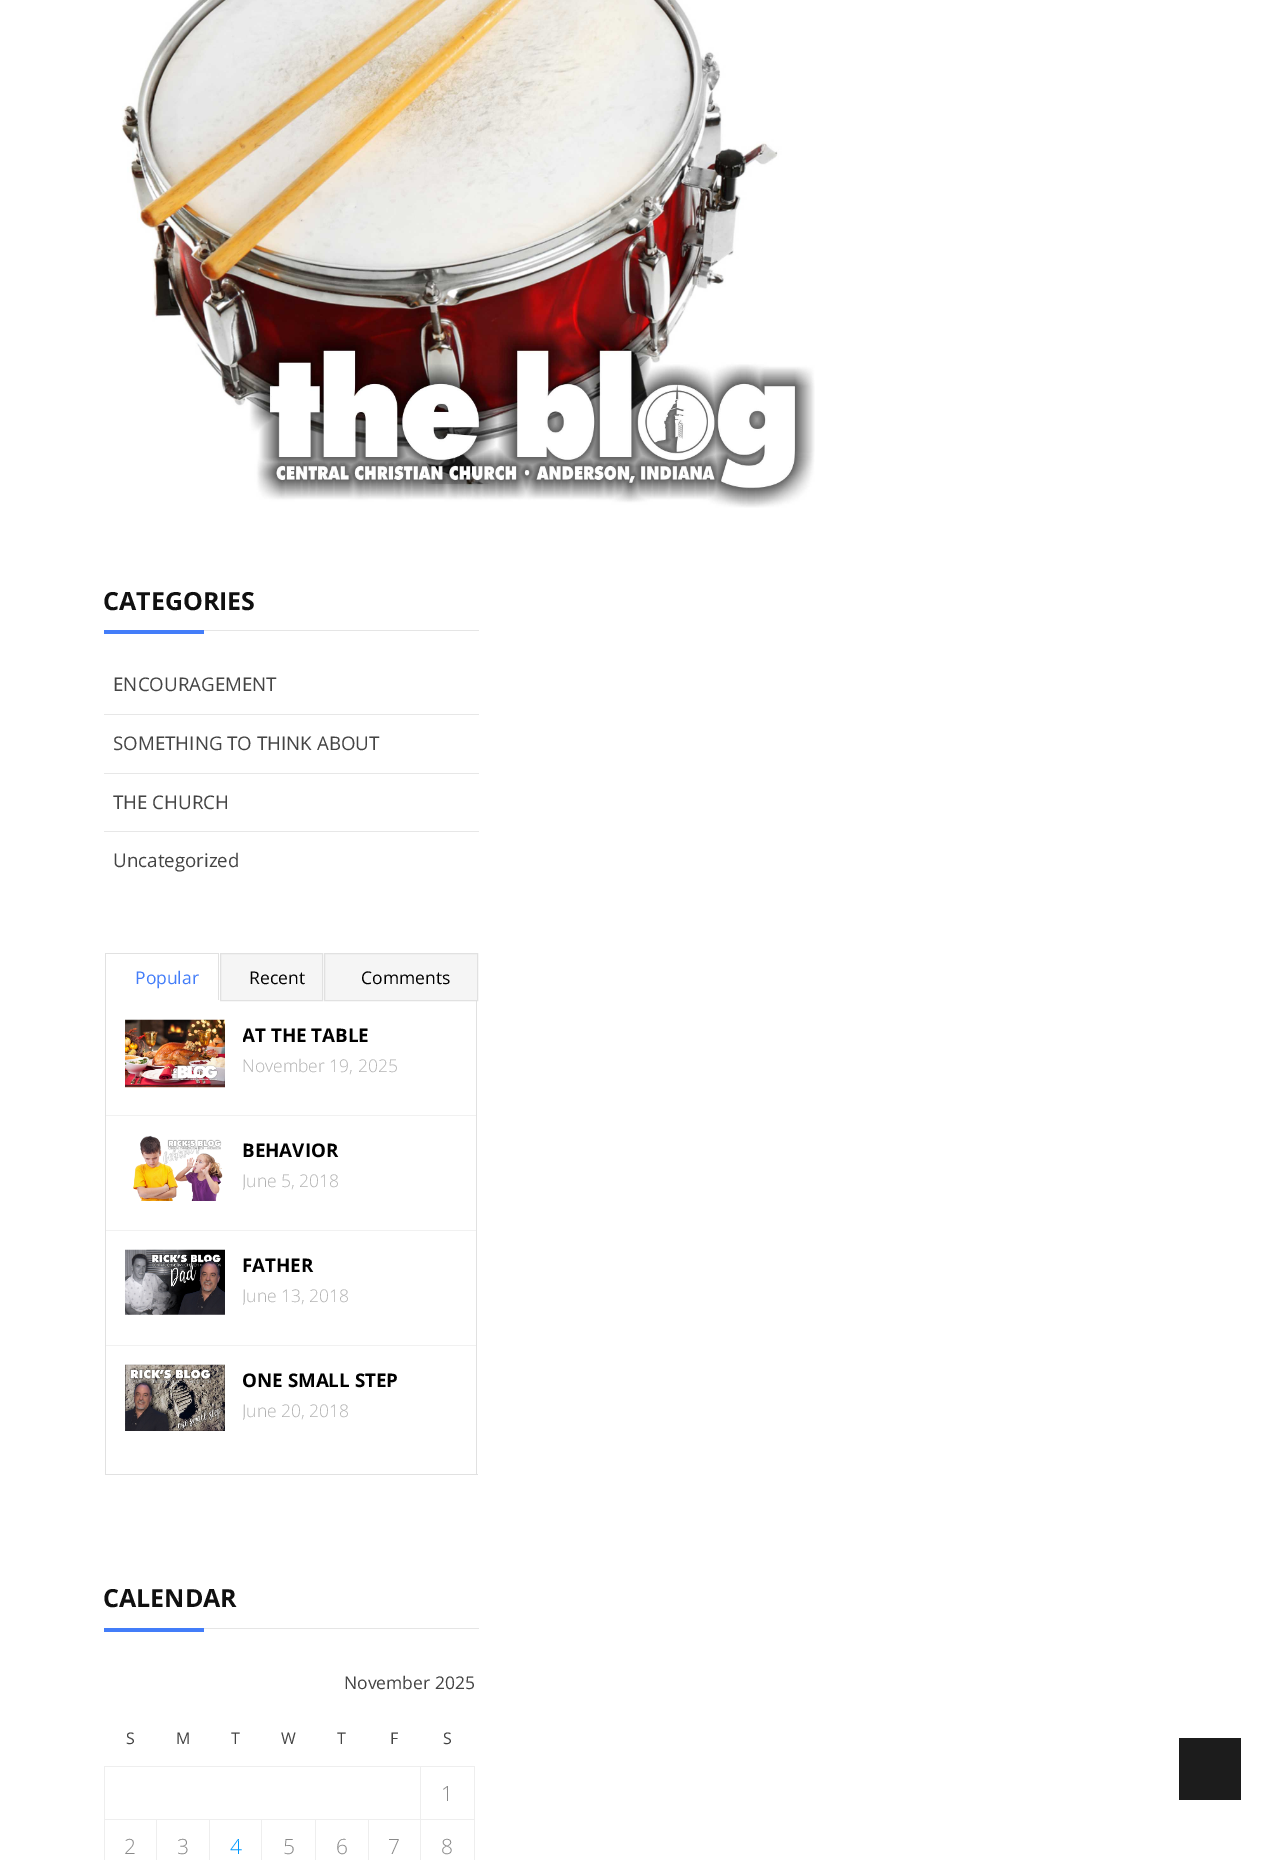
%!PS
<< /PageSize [1281 1860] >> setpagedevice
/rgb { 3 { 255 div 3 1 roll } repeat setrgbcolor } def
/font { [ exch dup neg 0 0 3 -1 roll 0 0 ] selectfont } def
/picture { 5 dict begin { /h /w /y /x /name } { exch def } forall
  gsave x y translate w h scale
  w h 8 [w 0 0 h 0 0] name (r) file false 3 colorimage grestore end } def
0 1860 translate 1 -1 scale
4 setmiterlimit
255 255 255 rgb
0 0 1281 1860 rectfill
(img/1.rgb) 121 0 694 508 picture
[
  [204 630 275 1 229 229 229]
  [104 630 100 4 67 125 249]
  [104 714 375 1 231 231 231]
  [104 773 375 1 231 231 231]
  [104 831 375 1 231 231 231]
  [105 953 114 1 225 225 225]
  [218 953 1 48 225 225 225]
  [218 1000 1 1 255 255 255]
  [105 953 1 48 225 225 225]
] { aload pop rgb rectfill } forall
245 245 245 rgb
220.5 953.5 moveto 322.5 953.5 lineto 322.5 1000.5 lineto 220.5 1000.5 lineto closepath gsave fill grestore
225 225 225 rgb
stroke
245 245 245 rgb
324.5 953.5 moveto 477.5 953.5 lineto 477.5 1000.5 lineto 324.5 1000.5 lineto closepath gsave fill grestore
225 225 225 rgb
stroke
[
  [476 1001 1 474 225 225 225]
  [105 1474 373 1 225 225 225]
  [105 1001 1 474 225 225 225]
  [106 1115 370 1 241 241 241]
] { aload pop rgb rectfill } forall
(img/2.rgb) 125 1019 100 69 picture
106 1230 370 1 rectfill
(img/3.rgb) 133 1135 90 66 picture
106 1345 370 1 rectfill
(img/4.rgb) 125 1249 100 66 picture
(img/5.rgb) 125 1364 100 67 picture
[
  [204 1628 275 1 229 229 229]
  [104 1628 100 4 67 125 249]
  [420 1766 55 1 238 238 238]
  [420 1819 55 1 238 238 238]
  [420 1819 1 41 238 238 238]
  [368 1819 53 1 238 238 238]
  [420 1766 1 54 238 238 238]
  [104 1766 317 1 238 238 238]
  [368 1819 1 41 238 238 238]
  [315 1819 54 1 238 238 238]
  [315 1819 1 41 238 238 238]
  [261 1819 55 1 238 238 238]
  [261 1819 1 41 238 238 238]
  [209 1819 54 1 238 238 238]
  [209 1819 1 41 238 238 238]
  [156 1819 54 1 238 238 238]
  [156 1819 1 41 238 238 238]
  [104 1819 54 1 238 238 238]
  [104 1819 1 41 238 238 238]
  [104 1766 1 54 238 238 238]
  [474 1819 1 41 238 238 238]
  [474 1766 1 54 238 238 238]
  [1179 1738 62 62 28 28 28]
] { aload pop rgb rectfill } forall
/OpenSans-Bold 25 font
16 16 16 rgb
103 610 moveto (CATEGORIES) show
/OpenSans-Regular 18.75 font
68 68 68 rgb
[
  [(ENCOURAGEMENT) 113 691]
  [(SOMETHING TO THINK ABOUT) 113 750]
  [(THE CHURCH) 113 809]
  [(Uncategorized) 113 867]
] { aload pop moveto show } forall
/OpenSans-Regular 17.5 font
67 125 249 rgb
135 984 moveto (Popular) show
0 0 0 rgb
249 984 moveto (Recent) show
361 984 moveto (Comments) show
gsave
243 1020 215 60 rectclip
/OpenSans-Bold 18.75 font
242 1042 moveto (AT THE TABLE) show
grestore
/OpenSans-Light 17.5 font
177 177 177 rgb
242 1072 moveto (November 19, 2025) show
/OpenSans-Bold 18.75 font
0 0 0 rgb
242 1157 moveto (BEHAVIOR) show
gsave
243 1135 215 60 rectclip
/OpenSans-Light 17.5 font
177 177 177 rgb
242 1187 moveto (June 5, 2018) show
grestore
242 1272 moveto (FATHER) show
gsave
243 1250 215 60 rectclip
/OpenSans-Light 17.5 font
177 177 177 rgb
242 1302 moveto (June 13, 2018) show
grestore
242 1387 moveto (ONE SMALL STEP) show
gsave
243 1365 215 60 rectclip
/OpenSans-Light 17.5 font
177 177 177 rgb
242 1417 moveto (June 20, 2018) show
grestore
/OpenSans-Bold 25 font
16 16 16 rgb
103 1607 moveto (CALENDAR) show
/OpenSans-Regular 17.5 font
68 68 68 rgb
344 1689 moveto (November 2025) show
/OpenSans-Regular 16 font
[
  [(S) 126 1744]
  [(M) 176 1744]
  [(T) 231 1744]
  [(W) 281 1744]
  [(T) 337 1744]
  [(F) 390 1744]
  [(S) 443 1744]
] { aload pop moveto show } forall
/OpenSans-Light 21 font
138 138 138 rgb
[
  [(1) 441 1801]
  [(2) 124 1854]
  [(3) 177 1854]
] { aload pop moveto show } forall
0 153 255 rgb
230 1854 moveto (4) show
138 138 138 rgb
[
  [(5) 283 1854]
  [(6) 336 1854]
  [(7) 388 1854]
  [(8) 441 1854]
] { aload pop moveto show } forall
showpage
